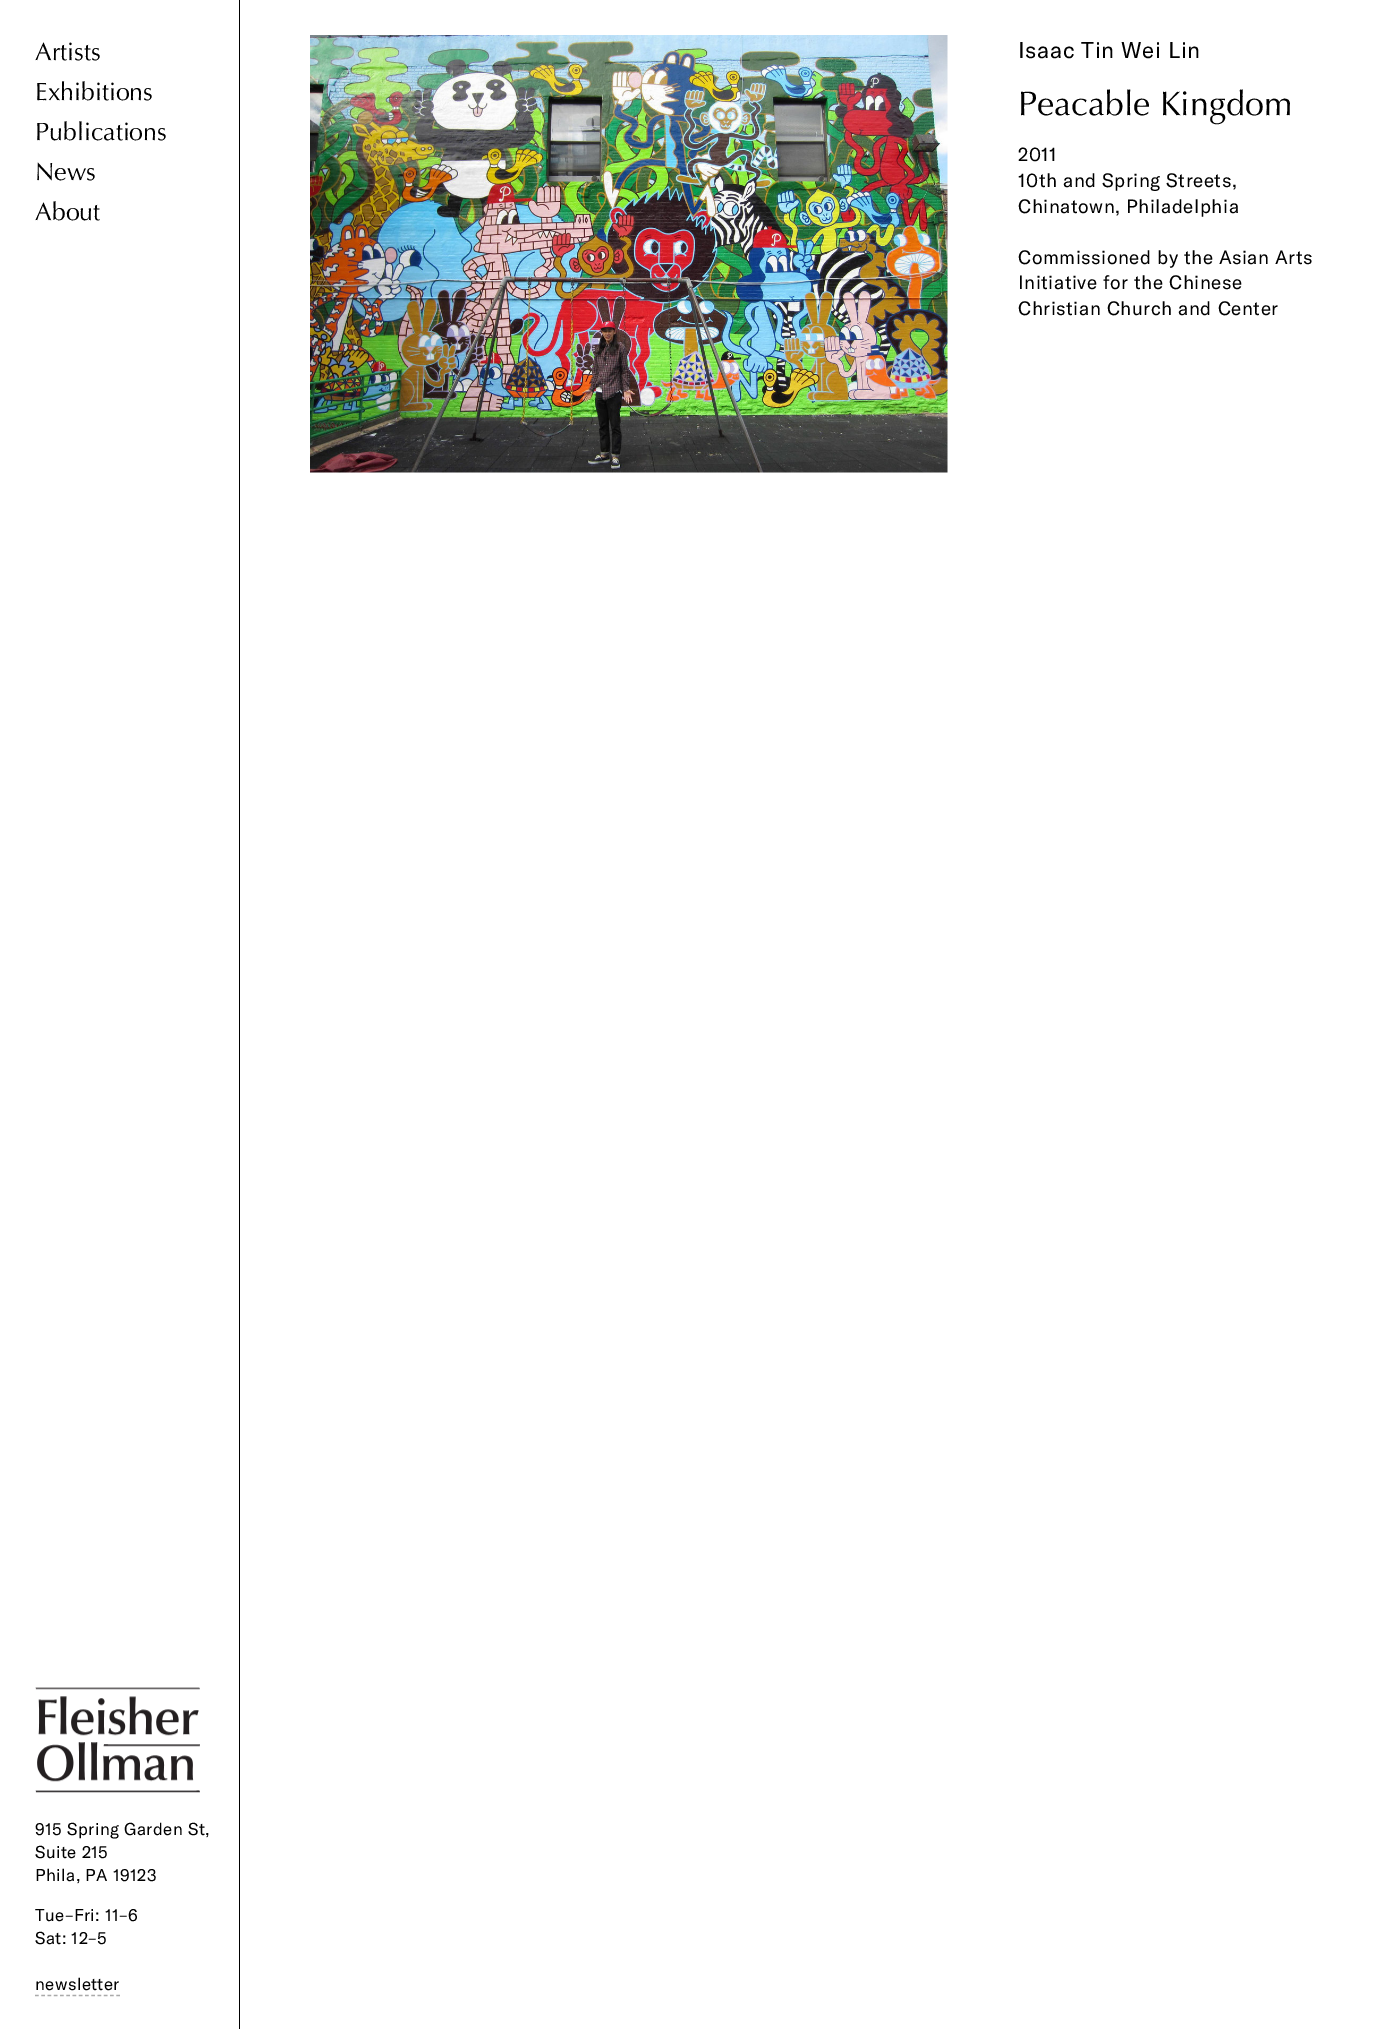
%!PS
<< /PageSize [1389 2029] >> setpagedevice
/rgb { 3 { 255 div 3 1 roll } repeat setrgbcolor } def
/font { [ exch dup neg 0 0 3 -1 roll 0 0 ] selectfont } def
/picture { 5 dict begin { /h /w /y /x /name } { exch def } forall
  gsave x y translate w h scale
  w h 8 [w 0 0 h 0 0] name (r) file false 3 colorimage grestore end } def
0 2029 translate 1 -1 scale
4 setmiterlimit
255 255 255 rgb
0 0 1389 2029 rectfill
0 0 0 rgb
239 0 1 2029 rectfill
(img/1.rgb) 35 1687 165 106 picture
170 170 170 rgb
1.2 setlinewidth
[3.75 2.5] 0 setdash
35 1995.5 moveto 120 1995.5 lineto stroke
(img/2.rgb) 310 35 638 438 picture
/Optima-Regular 25 font
0 0 0 rgb
[
  [(Artists) 35 60]
  [(Exhibitions) 35 100]
  [(Publications) 35 140]
  [(News) 35 180]
  [(About) 35 220]
] { aload pop moveto show } forall
/GTAmerica-Regular 17 font
35 1835 moveto 0.4 0 (915 Spring Garden St,) ashow
35 1858 moveto 0.4 0 (Suite 215) ashow
35 1881 moveto 0.4 0 (Phila, PA 19123) ashow
35 1921 moveto 0.4 0 (Tue–Fri: 11–6) ashow
35 1944 moveto 0.4 0 (Sat: 12–5) ashow
35 1990 moveto 0.4 0 (newsletter) ashow
/GTAmerica-Regular 22.5 font
1018 58 moveto 0.6 0 (Isaac Tin Wei Lin) ashow
/Optima-Regular 34 font
1018 115 moveto (Peacable Kingdom) show
/GTAmerica-Regular 19 font
1018 161 moveto 0.5 0 (2011) ashow
1018 187 moveto 0.5 0 (10th and Spring Streets,) ashow
1018 213 moveto 0.5 0 (Chinatown, Philadelphia) ashow
1018 264 moveto 0.5 0 (Commissioned by the Asian Arts) ashow
1018 289 moveto 0.5 0 (Initiative for the Chinese) ashow
1018 315 moveto 0.5 0 (Christian Church and Center) ashow
showpage
